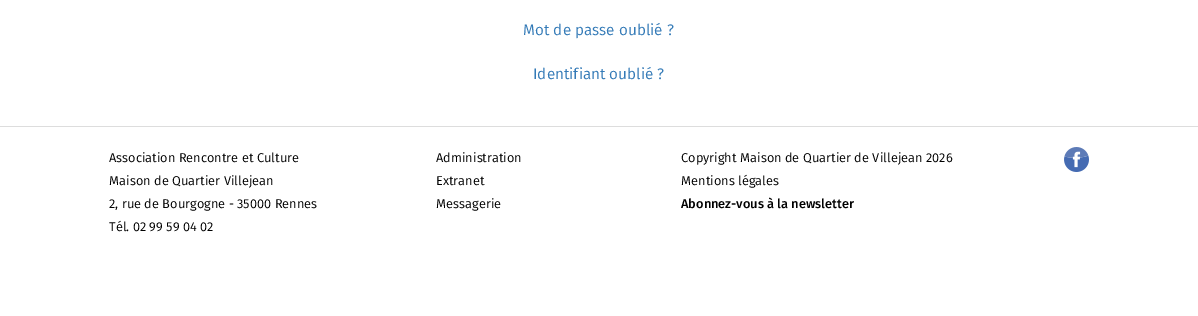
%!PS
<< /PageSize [1198 316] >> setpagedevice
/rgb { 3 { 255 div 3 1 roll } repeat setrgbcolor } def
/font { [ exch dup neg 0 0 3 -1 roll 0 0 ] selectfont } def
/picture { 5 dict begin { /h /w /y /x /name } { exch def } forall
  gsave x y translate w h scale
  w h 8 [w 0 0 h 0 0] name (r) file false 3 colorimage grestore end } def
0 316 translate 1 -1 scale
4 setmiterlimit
255 255 255 rgb
0 0 1198 316 rectfill
221 221 221 rgb
0 126 1198 1 rectfill
(img/1.rgb) 1064 147 25 25 picture
/FiraSans-Regular 15.25 font
51 122 183 rgb
523 35 moveto (Mot de passe oublié ?) show
533 79 moveto (Identifiant oublié ?) show
/FiraSans-Regular 12.8 font
0 0 0 rgb
[
  [(Association Rencontre et Culture) 109 162]
  [(Maison de Quartier Villejean) 109 185]
  [(2, rue de Bourgogne - 35000 Rennes) 109 208]
  [(Tél. 02 99 59 04 02) 109 231]
  [(Administration) 436 162]
  [(Extranet) 436 185]
  [(Messagerie) 436 208]
  [(Copyright Maison de Quartier de Villejean 2026) 681 162]
  [(Mentions légales) 681 185]
] { aload pop moveto show } forall
/FiraSans-Medium 12.8 font
681 208 moveto (Abonnez-vous à la newsletter) show
showpage
